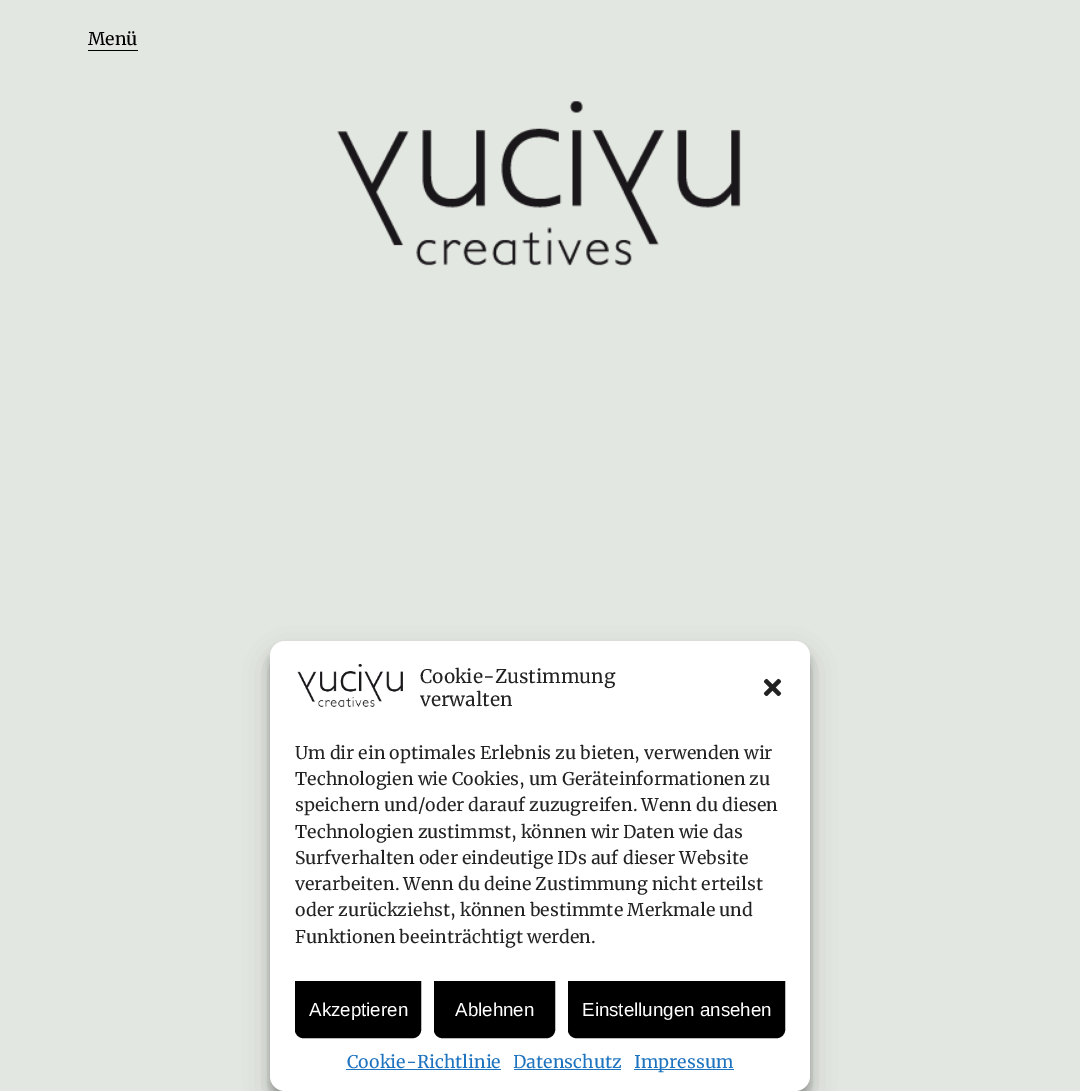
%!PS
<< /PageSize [1080 1091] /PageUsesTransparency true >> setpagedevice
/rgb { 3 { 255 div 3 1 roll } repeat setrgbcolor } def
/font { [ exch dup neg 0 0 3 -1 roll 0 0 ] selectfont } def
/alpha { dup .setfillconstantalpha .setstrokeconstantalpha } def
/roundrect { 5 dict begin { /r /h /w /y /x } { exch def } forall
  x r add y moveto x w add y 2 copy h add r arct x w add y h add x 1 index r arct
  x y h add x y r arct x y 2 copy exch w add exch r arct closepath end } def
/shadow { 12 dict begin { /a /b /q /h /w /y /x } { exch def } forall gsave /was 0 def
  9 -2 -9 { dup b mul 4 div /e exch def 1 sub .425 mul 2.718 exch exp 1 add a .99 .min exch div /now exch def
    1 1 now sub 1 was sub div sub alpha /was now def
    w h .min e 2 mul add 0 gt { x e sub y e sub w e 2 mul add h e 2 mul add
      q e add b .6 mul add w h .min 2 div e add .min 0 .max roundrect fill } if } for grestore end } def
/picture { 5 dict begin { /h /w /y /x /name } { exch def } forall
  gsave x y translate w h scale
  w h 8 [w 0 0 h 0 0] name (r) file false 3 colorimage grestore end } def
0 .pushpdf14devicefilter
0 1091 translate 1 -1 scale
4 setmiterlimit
227 231 225 rgb
0 0 1080 1091 rectfill
0 0 0 rgb
88 50 50 1 rectfill
(img/1.rgb) 337 101 404 165 picture
270 649 540 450 15 4 0.23 shadow
270 654 540 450 15 12.5 0.19 shadow
255 255 255 rgb
270 641 540 450 15 roundrect fill
(img/2.rgb) 297 664 106 43 picture
(img/3.rgb) 763 678 19 19 picture
0 0 0 rgb
295.5 981.5 moveto 420.5 981.5 lineto 420.5 1030 lineto 420.5 1034 417 1037.5 413 1037.5 curveto 303 1037.5 lineto 299 1037.5 295.5 1034 295.5 1030 curveto closepath gsave fill grestore
stroke
434.5 981.5 moveto 554.5 981.5 lineto 554.5 1030 lineto 554.5 1034 551 1037.5 547 1037.5 curveto 442 1037.5 lineto 438 1037.5 434.5 1034 434.5 1030 curveto closepath gsave fill grestore
stroke
568.5 981.5 moveto 784.5 981.5 lineto 784.5 1030 lineto 784.5 1034 781 1037.5 777 1037.5 curveto 576 1037.5 lineto 572 1037.5 568.5 1034 568.5 1030 curveto closepath gsave fill grestore
stroke
[
  [346 1069 155 1 30 115 190]
  [514 1069 107 1 30 115 190]
  [634 1069 100 1 30 115 190]
] { aload pop rgb rectfill } forall
/Merriweather-Regular 17.5 font
0 0 0 rgb
88 45 moveto (Menü) show
/Merriweather-Regular 18.75 font
34 34 34 rgb
420 683 moveto (Cookie-Zustimmung) show
420 706 moveto (verwalten) show
/Merriweather-Regular 17.5 font
[
  [(Um dir ein optimales Erlebnis zu bieten, verwenden wir) 295 759]
  [(Technologien wie Cookies, um Geräteinformationen zu) 295 785]
  [(speichern und/oder darauf zuzugreifen. Wenn du diesen) 295 811]
  [(Technologien zustimmst, können wir Daten wie das) 295 838]
  [(Surfverhalten oder eindeutige IDs auf dieser Website) 295 864]
  [(verarbeiten. Wenn du deine Zustimmung nicht erteilst) 295 890]
  [(oder zurückziehst, können bestimmte Merkmale und) 295 916]
  [(Funktionen beeinträchtigt werden.) 295 943]
] { aload pop moveto show } forall
/LiberationSans-Regular 18.75 font
255 255 255 rgb
[
  [(Akzeptieren) 309 1016]
  [(Ablehnen) 455 1016]
  [(Einstellungen ansehen) 582 1016]
] { aload pop moveto show } forall
/Merriweather-Regular 17.5 font
30 115 190 rgb
[
  [(Cookie-Richtlinie) 347 1068]
  [(Datenschutz) 513 1068]
  [(Impressum) 634 1068]
] { aload pop moveto show } forall
.poppdf14devicefilter showpage
